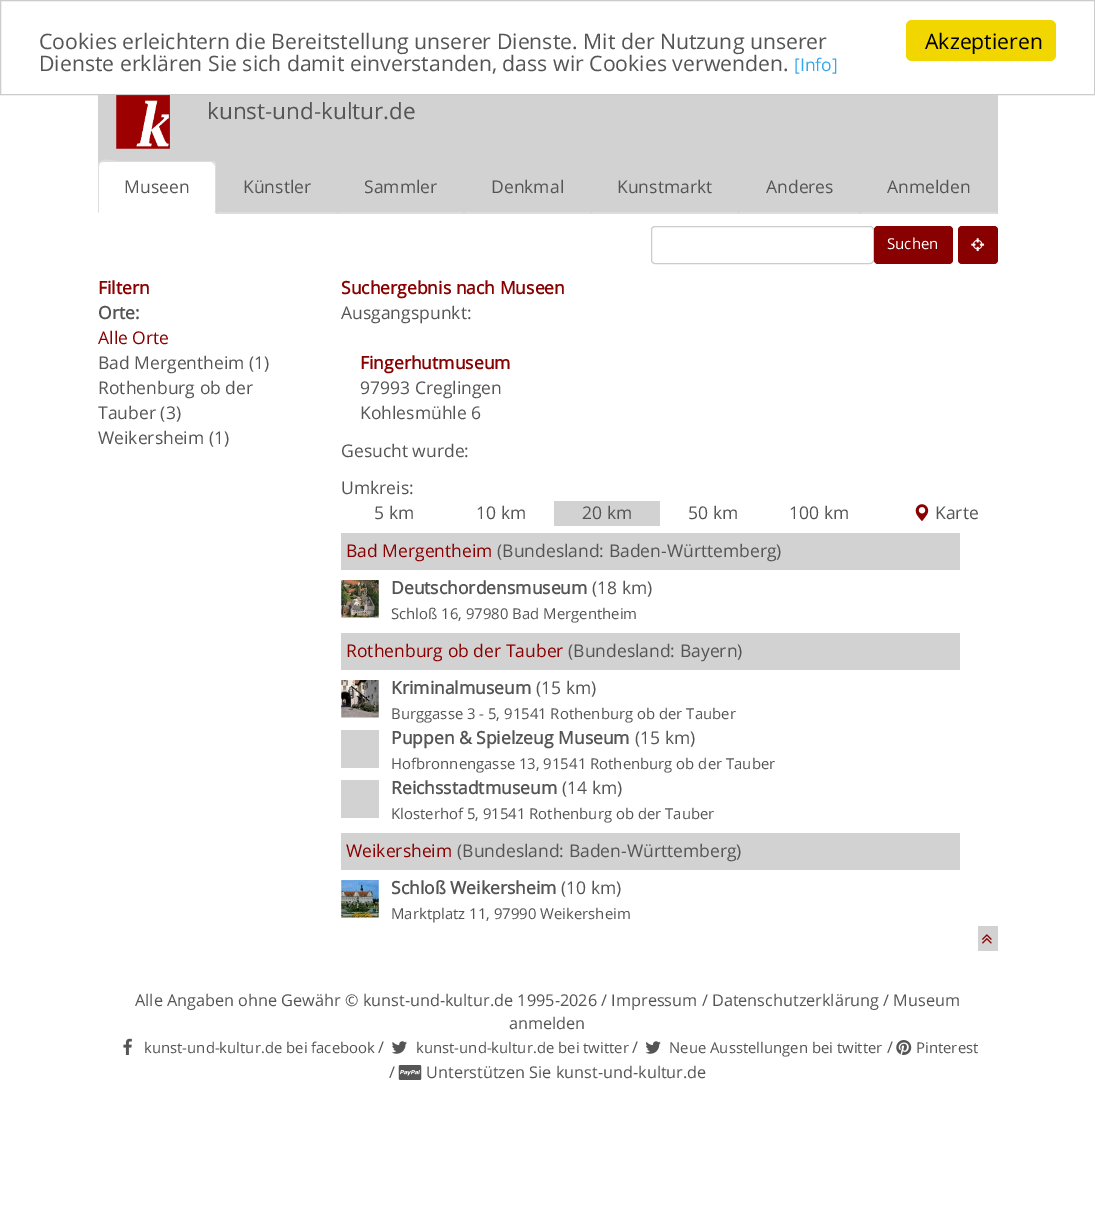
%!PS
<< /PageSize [1095 1215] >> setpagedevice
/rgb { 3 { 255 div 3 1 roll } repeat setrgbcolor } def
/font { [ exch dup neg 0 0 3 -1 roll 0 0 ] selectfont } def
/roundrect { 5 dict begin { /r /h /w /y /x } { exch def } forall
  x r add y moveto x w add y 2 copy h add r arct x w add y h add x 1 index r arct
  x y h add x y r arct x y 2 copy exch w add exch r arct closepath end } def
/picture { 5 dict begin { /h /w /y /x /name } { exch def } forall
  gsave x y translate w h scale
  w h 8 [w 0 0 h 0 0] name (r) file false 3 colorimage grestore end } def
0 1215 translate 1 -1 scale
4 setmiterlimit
255 255 255 rgb
0 0 1095 1215 rectfill
204 204 204 rgb
0.5 0.5 1094 94 rectstroke
241 214 0 rgb
906 20 150 41 6 roundrect fill
210 210 210 rgb
98 95 900 119 rectfill
(img/1.rgb) 116 95 54 54 picture
255 255 255 rgb
103 161 moveto 211 161 lineto 214 161 216 163 216 166 curveto 216 214 lineto 98 214 lineto 98 166 lineto 98 163 100 161 103 161 curveto closepath fill
221 221 221 rgb
102 162 moveto 101 162 100 163 100 163 curveto 99 163 lineto 103 157 112 161 119 161 curveto 213 161 lineto 215 163 lineto 214 164 lineto 213 163 212 162 211 162 curveto closepath fill
215 163 moveto 216 163 216 165 216 166 curveto 216 214 lineto 214 212 lineto 215 212 lineto 215 166 lineto 214 164 lineto closepath fill
255 255 255 rgb
98 214 moveto 99 212 lineto 214 212 lineto 216 214 lineto closepath fill
221 221 221 rgb
98 213 moveto 98 166 lineto 98 165 98 164 99 163 curveto 100 163 lineto 99 166 lineto 99 212 lineto closepath fill
338 214 moveto 336 212 lineto 218 212 lineto 216 214 lineto closepath fill
464 214 moveto 338 214 lineto 339 212 lineto 462 212 lineto closepath fill
464 214 moveto 466 212 lineto 590 212 lineto 591 214 lineto closepath fill
739 214 moveto 737 212 lineto 593 212 lineto 591 214 lineto closepath fill
860 214 moveto 739 214 lineto 740 212 lineto 858 212 lineto closepath fill
998 214 moveto 996 212 lineto 862 212 lineto 860 214 lineto closepath fill
204 204 204 rgb
651.5 226.5 222 37 3.5 roundrect stroke
136 0 0 rgb
874 226 79 38 4 roundrect fill
958 226 40 38 4 roundrect fill
(img/2.rgb) 971 238 14 14 picture
210 210 210 rgb
554 501 106 25 rectfill
(img/3.rgb) 915 504 14 17 picture
341 533 619 37 rectfill
(img/4.rgb) 341 580 38 38 picture
341 633 619 37 rectfill
(img/5.rgb) 341 680 38 38 picture
[
  [341 730 38 38 210 210 210]
  [341 780 38 38 210 210 210]
  [341 833 619 37 210 210 210]
] { aload pop rgb rectfill } forall
(img/6.rgb) 341 880 38 38 picture
978 926 20 25 rectfill
(img/7.rgb) 982 934 10 10 picture
(img/8.rgb) 123 1038 9 17 picture
(img/9.rgb) 391 1041 16 13 picture
(img/10.rgb) 645 1041 16 13 picture
(img/11.rgb) 896 1040 16 15 picture
(img/12.rgb) 398 1065 24 15 picture
/OpenSans-Regular 21.25 font
85 85 85 rgb
39 49 moveto (Cookies erleichtern die Bereitstellung unserer Dienste. Mit der Nutzung unserer) show
39 71 moveto (Dienste erklären Sie sich damit einverstanden, dass wir Cookies verwenden.) show
/OpenSans-Regular 17.5 font
49 168 240 rgb
794 71 moveto ([Info]) show
/OpenSans-Regular 21.25 font
0 0 0 rgb
925 49 moveto (Akzeptieren) show
/OpenSans-Regular 22.5 font
85 85 85 rgb
207 119 moveto (kunst-und-kultur.de) show
/OpenSans-Regular 17.5 font
[
  [(Museen) 124 193]
  [(Künstler) 243 193]
  [(Sammler) 364 193]
  [(Denkmal) 491 193]
  [(Kunstmarkt) 617 193]
  [(Anderes) 766 193]
  [(Anmelden) 887 193]
] { aload pop moveto show } forall
/OpenSans-Regular 15 font
255 255 255 rgb
887 249 moveto (Suchen) show
/OpenSans-Bold 17.5 font
136 0 0 rgb
98 294 moveto (Filtern) show
85 85 85 rgb
98 319 moveto (Orte:) show
/OpenSans-Regular 17.5 font
136 0 0 rgb
98 344 moveto (Alle Orte) show
85 85 85 rgb
[
  [(Bad Mergentheim \(1\)) 98 369]
  [(Rothenburg ob der) 98 394]
  [(Tauber \(3\)) 98 419]
  [(Weikersheim \(1\)) 98 444]
] { aload pop moveto show } forall
/OpenSans-Bold 17.5 font
136 0 0 rgb
341 294 moveto (Suchergebnis nach Museen) show
/OpenSans-Regular 17.5 font
85 85 85 rgb
341 319 moveto (Ausgangspunkt:) show
/OpenSans-Bold 17.5 font
136 0 0 rgb
360 369 moveto (Fingerhutmuseum) show
/OpenSans-Regular 17.5 font
85 85 85 rgb
[
  [(97993 Creglingen) 360 394]
  [(Kohlesmühle 6) 360 419]
  [(Gesucht wurde:) 341 457]
  [(Umkreis:) 341 494]
  [(5 km) 374 519]
  [(10 km) 476 519]
  [(20 km) 582 519]
  [(50 km) 688 519]
  [(100 km) 789 519]
  [(Karte) 935 519]
] { aload pop moveto show } forall
136 0 0 rgb
346 557 moveto (Bad Mergentheim) show
85 85 85 rgb
497 557 moveto (\(Bundesland: Baden-Württemberg\)) show
/OpenSans-Bold 17.5 font
391 594 moveto (Deutschordensmuseum) show
/OpenSans-Regular 17.5 font
592 594 moveto (\(18 km\)) show
/OpenSans-Regular 14.9 font
391 619 moveto (Schloß 16, 97980 Bad Mergentheim) show
/OpenSans-Regular 17.5 font
136 0 0 rgb
346 657 moveto (Rothenburg ob der Tauber) show
85 85 85 rgb
568 657 moveto (\(Bundesland: Bayern\)) show
/OpenSans-Bold 17.5 font
391 694 moveto (Kriminalmuseum) show
/OpenSans-Regular 17.5 font
536 694 moveto (\(15 km\)) show
/OpenSans-Regular 14.9 font
391 719 moveto (Burggasse 3 - 5, 91541 Rothenburg ob der Tauber) show
/OpenSans-Bold 17.5 font
391 744 moveto (Puppen & Spielzeug Museum) show
/OpenSans-Regular 17.5 font
635 744 moveto (\(15 km\)) show
/OpenSans-Regular 14.9 font
391 769 moveto (Hofbronnengasse 13, 91541 Rothenburg ob der Tauber) show
/OpenSans-Bold 17.5 font
391 794 moveto (Reichsstadtmuseum) show
/OpenSans-Regular 17.5 font
562 794 moveto (\(14 km\)) show
/OpenSans-Regular 14.9 font
391 819 moveto (Klosterhof 5, 91541 Rothenburg ob der Tauber) show
/OpenSans-Regular 17.5 font
136 0 0 rgb
346 857 moveto (Weikersheim) show
85 85 85 rgb
457 857 moveto (\(Bundesland: Baden-Württemberg\)) show
/OpenSans-Bold 17.5 font
391 894 moveto (Schloß Weikersheim) show
/OpenSans-Regular 17.5 font
561 894 moveto (\(10 km\)) show
/OpenSans-Regular 14.9 font
391 919 moveto (Marktplatz 11, 97990 Weikersheim) show
/OpenSans-Regular 16.25 font
135 1006 moveto (Alle Angaben ohne Gewähr © kunst-und-kultur.de 1995-2026 / Impressum / Datenschutzerklärung / Museum) show
509 1029 moveto (anmelden) show
/OpenSans-Regular 14.9 font
144 1053 moveto (kunst-und-kultur.de bei facebook) show
/OpenSans-Regular 16.25 font
378 1053 moveto (/) show
/OpenSans-Regular 14.9 font
416 1053 moveto (kunst-und-kultur.de bei twitter) show
/OpenSans-Regular 16.25 font
632 1053 moveto (/) show
/OpenSans-Regular 14.9 font
669 1053 moveto (Neue Ausstellungen bei twitter) show
/OpenSans-Regular 16.25 font
887 1053 moveto (/) show
/OpenSans-Regular 14.9 font
916 1053 moveto (Pinterest) show
/OpenSans-Regular 16.25 font
389 1078 moveto (/) show
426 1078 moveto (Unterstützen Sie kunst-und-kultur.de) show
showpage
